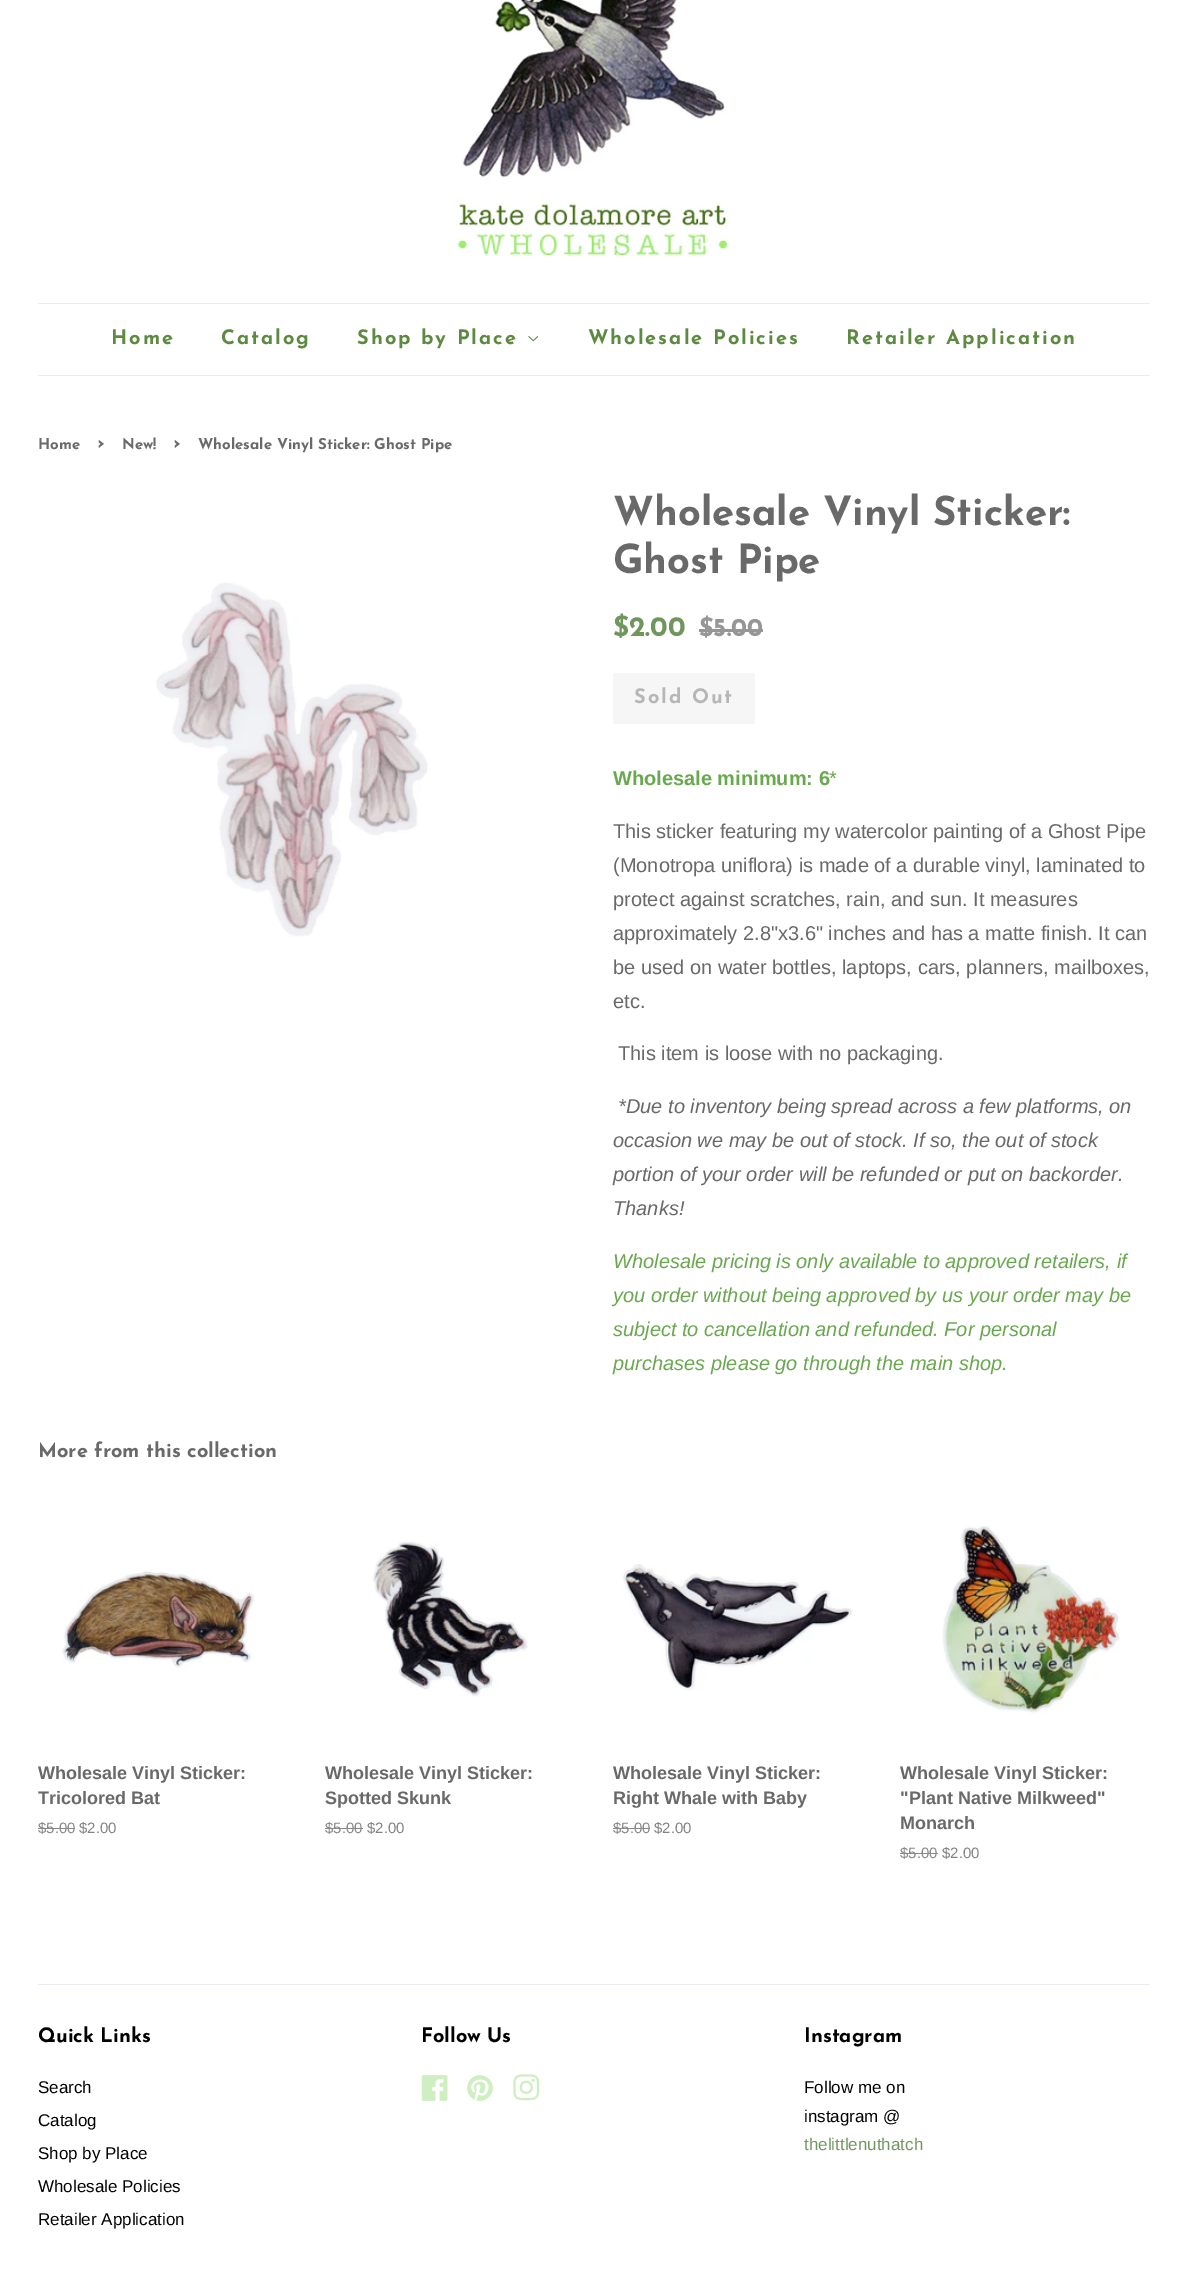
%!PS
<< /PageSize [1187 2293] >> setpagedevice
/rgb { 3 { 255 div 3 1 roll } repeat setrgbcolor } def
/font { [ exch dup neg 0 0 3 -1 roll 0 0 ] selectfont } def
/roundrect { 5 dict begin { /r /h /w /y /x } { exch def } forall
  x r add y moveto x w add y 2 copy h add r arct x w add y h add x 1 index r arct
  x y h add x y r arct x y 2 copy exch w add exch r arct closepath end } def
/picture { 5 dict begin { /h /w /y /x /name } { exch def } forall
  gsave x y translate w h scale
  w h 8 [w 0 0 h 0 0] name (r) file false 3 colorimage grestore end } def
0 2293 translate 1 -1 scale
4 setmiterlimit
255 255 255 rgb
0 0 1187 2293 rectfill
(img/1.rgb) 457 0 272 256 picture
236 237 244 rgb
38 303 1112 1 rectfill
38 375 1112 1 rectfill
(img/2.rgb) 528 335 11 7 picture
(img/3.rgb) 156 582 272 355 picture
150 150 150 rgb
699 629 64 3 rectfill
246 246 246 rgb
613 673 142 51 2.5 roundrect fill
(img/4.rgb) 62 1570 193 98 picture
137 137 137 rgb
38 1828 37 1 rectfill
(img/5.rgb) 372 1541 156 156 picture
325 1828 38 1 rectfill
(img/6.rgb) 622 1564 231 127 picture
613 1828 37 1 rectfill
(img/7.rgb) 942 1525 178 190 picture
900 1853 38 1 rectfill
236 237 244 rgb
38 1984 1112 1 rectfill
(img/8.rgb) 421 2075 27 26 picture
(img/9.rgb) 467 2075 26 26 picture
(img/10.rgb) 513 2074 27 27 picture
/JosefinSans-Thin 20 font
93 138 65 rgb
111 344 moveto 2 0 (Home) ashow
221 344 moveto 2 0 (Catalog) ashow
357 344 moveto 2 0 (Shop by Place) ashow
588 344 moveto 2 0 (Wholesale Policies) ashow
846 344 moveto 2 0 (Retailer Application) ashow
/JosefinSans-Thin 15 font
105 105 105 rgb
38 449 moveto (Home) show
/JosefinSans-Thin 21 font
97 449 moveto (›) show
/JosefinSans-Thin 15 font
122 449 moveto (New!) show
/JosefinSans-Thin 21 font
173 449 moveto (›) show
/JosefinSans-Thin 15 font
198 449 moveto (Wholesale Vinyl Sticker: Ghost Pipe) show
/JosefinSans-Thin 40 font
613 525 moveto (Wholesale Vinyl Sticker:) show
613 573 moveto (Ghost Pipe) show
/JosefinSans-Thin 28 font
111 151 93 rgb
613 636 moveto ($2.00) show
/JosefinSans-Thin 25.5 font
150 150 150 rgb
699 636 moveto ($5.00) show
/JosefinSans-Thin 20 font
182 182 182 rgb
634 703 moveto 2 0 (Sold Out) ashow
/LiberationSans-Bold 20 font
106 168 79 rgb
613 785 moveto (Wholesale minimum: 6) show
/LiberationSans-Regular 20 font
829 785 moveto (*) show
105 105 105 rgb
[
  [(This sticker featuring my watercolor painting of a Ghost Pipe) 613 838]
  [(\(Monotropa uniflora\) is made of a durable vinyl, laminated to) 613 872]
  [(protect against scratches, rain, and sun. It measures) 613 906]
  [(approximately 2.8"x3.6" inches and has a matte finish. It can) 613 940]
  [(be used on water bottles, laptops, cars, planners, mailboxes,) 613 974]
  [(etc.) 613 1008]
  [(This item is loose with no packaging.) 618 1060]
] { aload pop moveto show } forall
/LiberationSans-Italic 20 font
[
  [(*Due to inventory being spread across a few platforms, on) 618 1113]
  [(occasion we may be out of stock. If so, the out of stock) 613 1147]
  [(portion of your order will be refunded or put on backorder.) 613 1181]
  [(Thanks!) 613 1215]
] { aload pop moveto show } forall
106 168 79 rgb
[
  [(Wholesale pricing is only available to approved retailers, if) 613 1268]
  [(you order without being approved by us your order may be) 613 1302]
  [(subject to cancellation and refunded. For personal) 613 1336]
  [(purchases please go through the main shop.) 613 1370]
] { aload pop moveto show } forall
/JosefinSans-Thin 20 font
105 105 105 rgb
38 1457 moveto (More from this collection) show
/LiberationSans-Bold 18 font
38 1779 moveto (Wholesale Vinyl Sticker:) show
38 1804 moveto (Tricolored Bat) show
/LiberationSans-Regular 15 font
137 137 137 rgb
38 1833 moveto ($5.00) show
131 131 131 rgb
79 1833 moveto ($2.00) show
/LiberationSans-Bold 18 font
105 105 105 rgb
325 1779 moveto (Wholesale Vinyl Sticker:) show
325 1804 moveto (Spotted Skunk) show
/LiberationSans-Regular 15 font
137 137 137 rgb
325 1833 moveto ($5.00) show
131 131 131 rgb
367 1833 moveto ($2.00) show
/LiberationSans-Bold 18 font
105 105 105 rgb
613 1779 moveto (Wholesale Vinyl Sticker:) show
613 1804 moveto (Right Whale with Baby) show
/LiberationSans-Regular 15 font
137 137 137 rgb
613 1833 moveto ($5.00) show
131 131 131 rgb
654 1833 moveto ($2.00) show
/LiberationSans-Bold 18 font
105 105 105 rgb
[
  [(Wholesale Vinyl Sticker:) 900 1779]
  [("Plant Native Milkweed") 900 1804]
  [(Monarch) 900 1829]
] { aload pop moveto show } forall
/LiberationSans-Regular 15 font
137 137 137 rgb
900 1858 moveto ($5.00) show
131 131 131 rgb
942 1858 moveto ($2.00) show
/JosefinSans-Thin 20 font
0 0 0 rgb
38 2042 moveto (Quick Links) show
/LiberationSans-Regular 17 font
[
  [(Search) 38 2093]
  [(Catalog) 38 2126]
  [(Shop by Place) 38 2159]
  [(Wholesale Policies) 38 2192]
  [(Retailer Application) 38 2225]
] { aload pop moveto show } forall
/JosefinSans-Thin 20 font
421 2042 moveto (Follow Us) show
804 2042 moveto (Instagram) show
/LiberationSans-Regular 17 font
804 2093 moveto (Follow me on) show
804 2122 moveto (instagram @) show
111 151 93 rgb
804 2150 moveto (thelittlenuthatch) show
showpage
